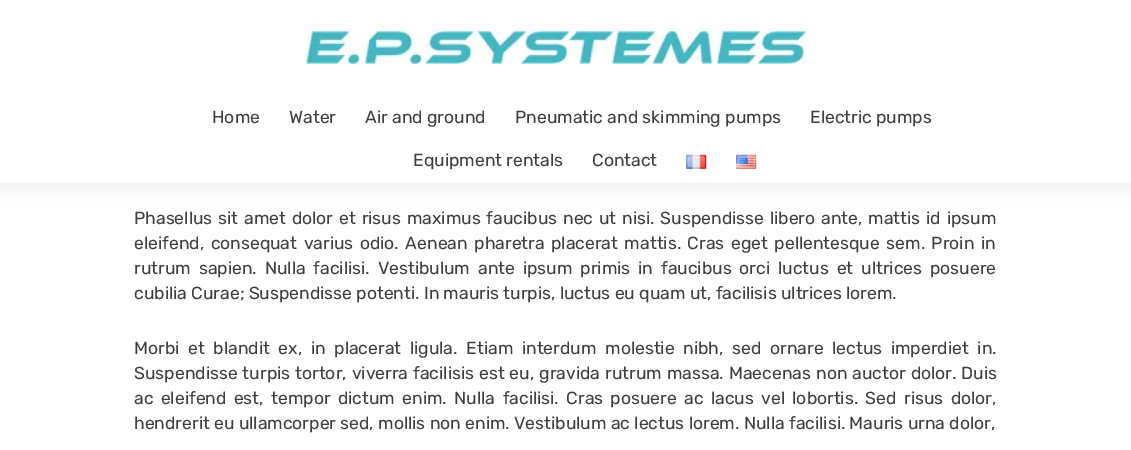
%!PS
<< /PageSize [1131 450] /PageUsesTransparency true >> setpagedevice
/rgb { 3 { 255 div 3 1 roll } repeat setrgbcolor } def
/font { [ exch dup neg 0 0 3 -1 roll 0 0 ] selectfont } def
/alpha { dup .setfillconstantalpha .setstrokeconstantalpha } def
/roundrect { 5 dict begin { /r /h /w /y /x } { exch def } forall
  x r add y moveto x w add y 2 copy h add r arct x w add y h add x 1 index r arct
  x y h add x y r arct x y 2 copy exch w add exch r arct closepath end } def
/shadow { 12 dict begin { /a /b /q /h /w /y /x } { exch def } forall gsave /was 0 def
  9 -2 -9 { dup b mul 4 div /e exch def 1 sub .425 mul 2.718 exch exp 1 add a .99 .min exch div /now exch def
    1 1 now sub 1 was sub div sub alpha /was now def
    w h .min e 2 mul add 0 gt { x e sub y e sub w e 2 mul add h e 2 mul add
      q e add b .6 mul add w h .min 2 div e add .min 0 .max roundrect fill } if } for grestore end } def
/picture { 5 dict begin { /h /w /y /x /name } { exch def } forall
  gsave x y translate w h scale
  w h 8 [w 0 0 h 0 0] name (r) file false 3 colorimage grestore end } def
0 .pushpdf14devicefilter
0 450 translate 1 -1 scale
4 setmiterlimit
255 255 255 rgb
0 0 1131 450 rectfill
50 50 50 rgb
0 6 1131 183 0 7 0.08 shadow
255 255 255 rgb
0 0 1131 183 rectfill
(img/1.rgb) 306 31 501 33 picture
(img/2.rgb) 686 154 21 15 picture
(img/3.rgb) 736 154 21 15 picture
/Rubik-Regular 17.5 font
64 64 64 rgb
[
  [(Home) 212 123]
  [(Water) 289 123]
  [(Air and ground) 365 123]
  [(Pneumatic and skimming pumps) 515 123]
  [(Electric pumps) 810 123]
  [(Equipment rentals) 413 166]
  [(Contact) 592 166]
] { aload pop moveto show } forall
134 224 moveto 1.6 0 32 (Phasellus sit amet dolor et risus maximus faucibus nec ut nisi. Suspendisse libero ante, mattis id ipsum) widthshow
134 249 moveto 2.25 0 32 (eleifend, consequat varius odio. Aenean pharetra placerat mattis. Cras eget pellentesque sem. Proin in) widthshow
134 274 moveto 3.6 0 32 (rutrum sapien. Nulla facilisi. Vestibulum ante ipsum primis in faucibus orci luctus et ultrices posuere) widthshow
134 299 moveto (cubilia Curae; Suspendisse potenti. In mauris turpis, luctus eu quam ut, facilisis ultrices lorem.) show
134 354 moveto 4.4 0 32 (Morbi et blandit ex, in placerat ligula. Etiam interdum molestie nibh, sed ornare lectus imperdiet in.) widthshow
134 379 moveto 0.75 0 32 (Suspendisse turpis tortor, viverra facilisis est eu, gravida rutrum massa. Maecenas non auctor dolor. Duis) widthshow
134 404 moveto 3.1 0 32 (ac eleifend est, tempor dictum enim. Nulla facilisi. Cras posuere ac lacus vel lobortis. Sed risus dolor,) widthshow
134 429 moveto (hendrerit eu ullamcorper sed, mollis non enim. Vestibulum ac lectus lorem. Nulla facilisi. Mauris urna dolor,) show
.poppdf14devicefilter showpage
